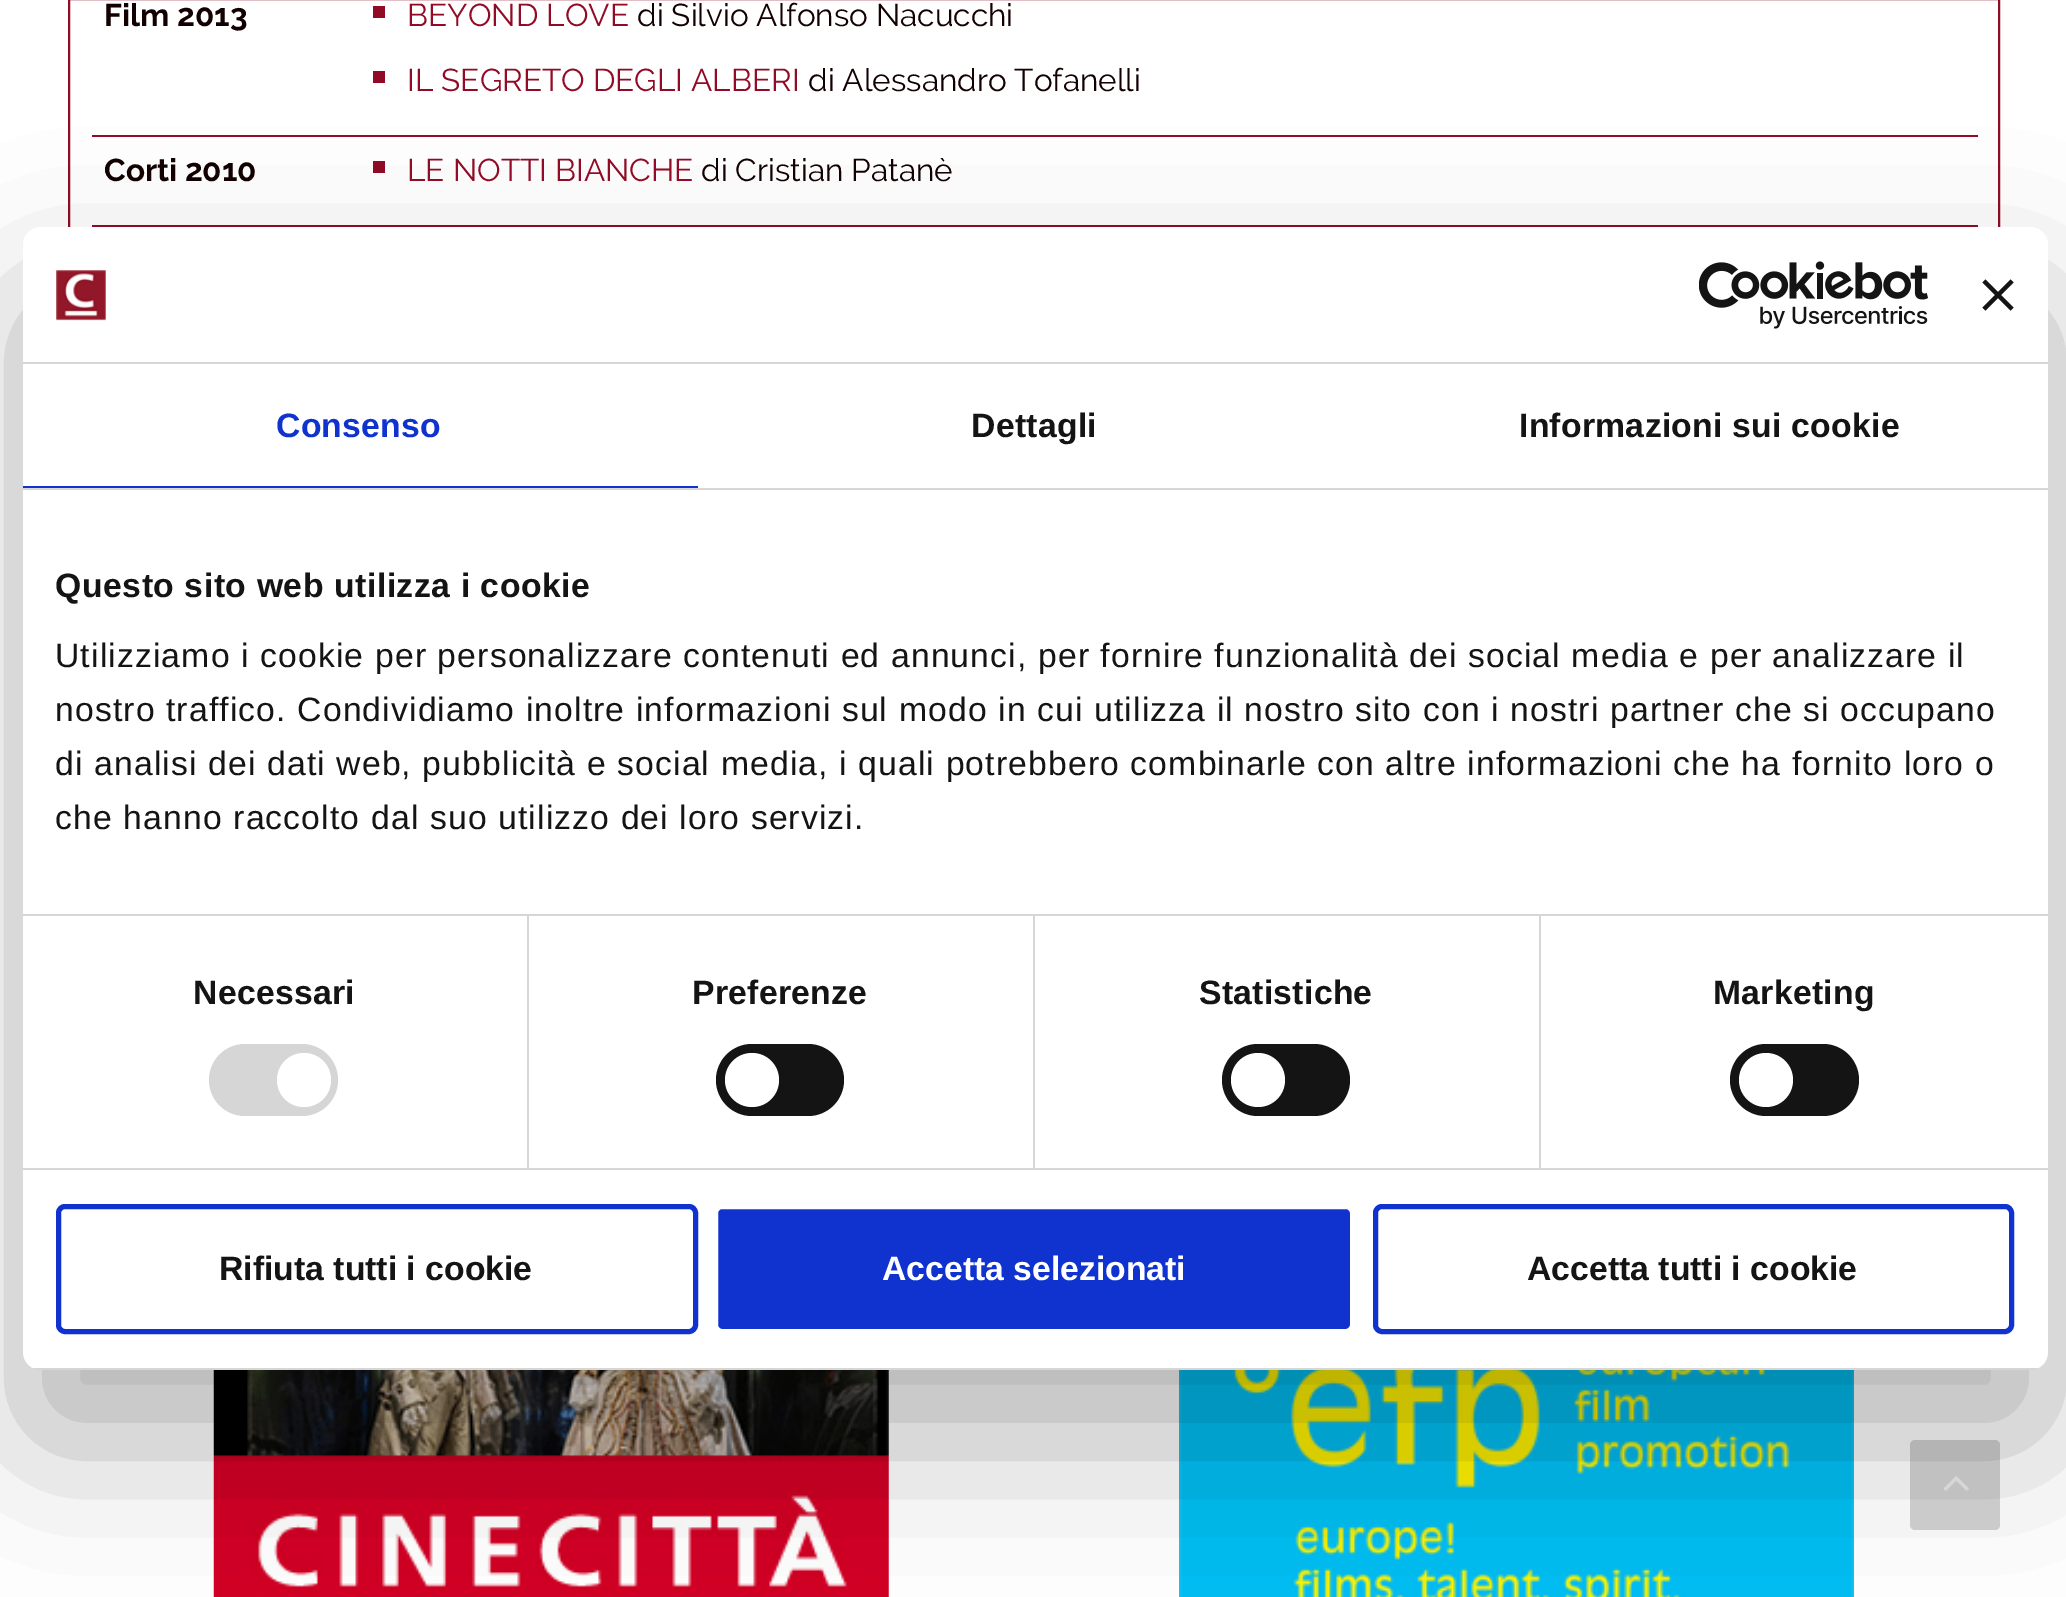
%!PS
<< /PageSize [2066 1597] /PageUsesTransparency true >> setpagedevice
/rgb { 3 { 255 div 3 1 roll } repeat setrgbcolor } def
/font { [ exch dup neg 0 0 3 -1 roll 0 0 ] selectfont } def
/alpha { dup .setfillconstantalpha .setstrokeconstantalpha } def
/circle { newpath 0 360 arc closepath } def
/roundrect { 5 dict begin { /r /h /w /y /x } { exch def } forall
  x r add y moveto x w add y 2 copy h add r arct x w add y h add x 1 index r arct
  x y h add x y r arct x y 2 copy exch w add exch r arct closepath end } def
/shadow { 12 dict begin { /a /b /q /h /w /y /x } { exch def } forall gsave /was 0 def
  9 -2 -9 { dup b mul 4 div /e exch def 1 sub .425 mul 2.718 exch exp 1 add a .99 .min exch div /now exch def
    1 1 now sub 1 was sub div sub alpha /was now def
    w h .min e 2 mul add 0 gt { x e sub y e sub w e 2 mul add h e 2 mul add
      q e add b .6 mul add w h .min 2 div e add .min 0 .max roundrect fill } if } for grestore end } def
/picture { 5 dict begin { /h /w /y /x /name } { exch def } forall
  gsave x y translate w h scale
  w h 8 [w 0 0 h 0 0] name (r) file false 3 colorimage grestore end } def
0 .pushpdf14devicefilter
0 1597 translate 1 -1 scale
4 setmiterlimit
255 255 255 rgb
0 0 2066 1597 rectfill
145 11 38 rgb
2 setlinewidth
69 -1 1930 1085 rectstroke
[
  [92 135 1886 2 145 11 38]
  [373 6 12 12 145 11 38]
  [373 71 12 12 145 11 38]
  [92 225 1886 2 145 11 38]
  [373 161 12 12 145 11 38]
] { aload pop rgb rectfill } forall
(img/1.rgb) 213 1370 676 227 picture
(img/2.rgb) 1179 1370 675 227 picture
212 212 212 rgb
1910 1440 90 90 5 roundrect fill
(img/6.rgb) 1943 1476 26 15 picture
0 0 0 rgb
23 299 2025 1143 18 76.5 0.3 shadow
255 255 255 rgb
23 227 2025 1143 18 roundrect fill
214 214 214 rgb
23 362 2025 2 rectfill
(img/3.rgb) 56 270 50 51 picture
(img/4.rgb) 1699 261 229 68 picture
(img/5.rgb) 1982 279 32 32 picture
[
  [23 488 2025 2 214 214 214]
  [23 486 675 2 16 50 207]
  [23 914 2025 2 214 214 214]
  [23 1168 2025 2 214 214 214]
  [527 916 2 252 214 214 214]
] { aload pop rgb rectfill } forall
209 1044 129 72 36 roundrect fill
255 255 255 rgb
304 1080 27 circle fill
214 214 214 rgb
1033 916 2 252 rectfill
20 20 20 rgb
716 1044 128 72 36 roundrect fill
255 255 255 rgb
752 1080 27 circle fill
214 214 214 rgb
1539 916 2 252 rectfill
20 20 20 rgb
1222 1044 128 72 36 roundrect fill
255 255 255 rgb
1258 1080 27 circle fill
20 20 20 rgb
1730 1044 129 72 36 roundrect fill
255 255 255 rgb
1766 1080 27 circle fill
gsave
23 227 2025 1143 18 roundrect clip newpath
214 214 214 rgb
33 1368 2005 2 rectfill
grestore
16 50 207 rgb
5 setlinewidth
58.5 1206.5 637 125 6.5 roundrect stroke
715.5 1206.5 637 125 6.5 roundrect gsave fill grestore
255 255 255 rgb
stroke
16 50 207 rgb
1375.5 1206.5 636 125 6.5 roundrect stroke
/Raleway-Bold 31.5 font
19 0 1 rgb
104 26 moveto (Film 2013) show
/Raleway-Regular 31.5 font
145 11 38 rgb
407 26 moveto (BEYOND LOVE) show
19 0 1 rgb
637 26 moveto (di Silvio Alfonso Nacucchi) show
145 11 38 rgb
407 91 moveto (IL SEGRETO DEGLI ALBERI) show
19 0 1 rgb
808 91 moveto (di Alessandro Tofanelli) show
/Raleway-Bold 31.5 font
104 181 moveto (Corti 2010) show
/Raleway-Regular 31.5 font
145 11 38 rgb
407 181 moveto (LE NOTTI BIANCHE) show
19 0 1 rgb
701 181 moveto (di Cristian Patanè) show
/LiberationSans-Bold 33.75 font
16 50 207 rgb
276 437 moveto 0.25 0 (Consenso) ashow
20 20 20 rgb
971 437 moveto 0.25 0 (Dettagli) ashow
1519 437 moveto 0.25 0 (Informazioni sui cookie) ashow
55 597 moveto 0.55 0 (Questo sito web utilizza i cookie) ashow
/LiberationSans-Regular 33.75 font
55 667 moveto 1.12 0 (Utilizziamo i cookie per personalizzare contenuti ed annunci, per fornire funzionalità dei social media e per analizzare il) ashow
55 721 moveto 1.12 0 (nostro traffico. Condividiamo inoltre informazioni sul modo in cui utilizza il nostro sito con i nostri partner che si occupano) ashow
55 775 moveto 1.12 0 (di analisi dei dati web, pubblicità e social media, i quali potrebbero combinarle con altre informazioni che ha fornito loro o) ashow
55 829 moveto 1.12 0 (che hanno raccolto dal suo utilizzo dei loro servizi.) ashow
/LiberationSans-Bold 33.75 font
193 1004 moveto 0.25 0 (Necessari) ashow
692 1004 moveto 0.25 0 (Preferenze) ashow
1199 1004 moveto 0.25 0 (Statistiche) ashow
1713 1004 moveto 0.25 0 (Marketing) ashow
219 1280 moveto (Rifiuta tutti i cookie) show
255 255 255 rgb
882 1280 moveto (Accetta selezionati) show
20 20 20 rgb
1527 1280 moveto (Accetta tutti i cookie) show
.poppdf14devicefilter showpage
